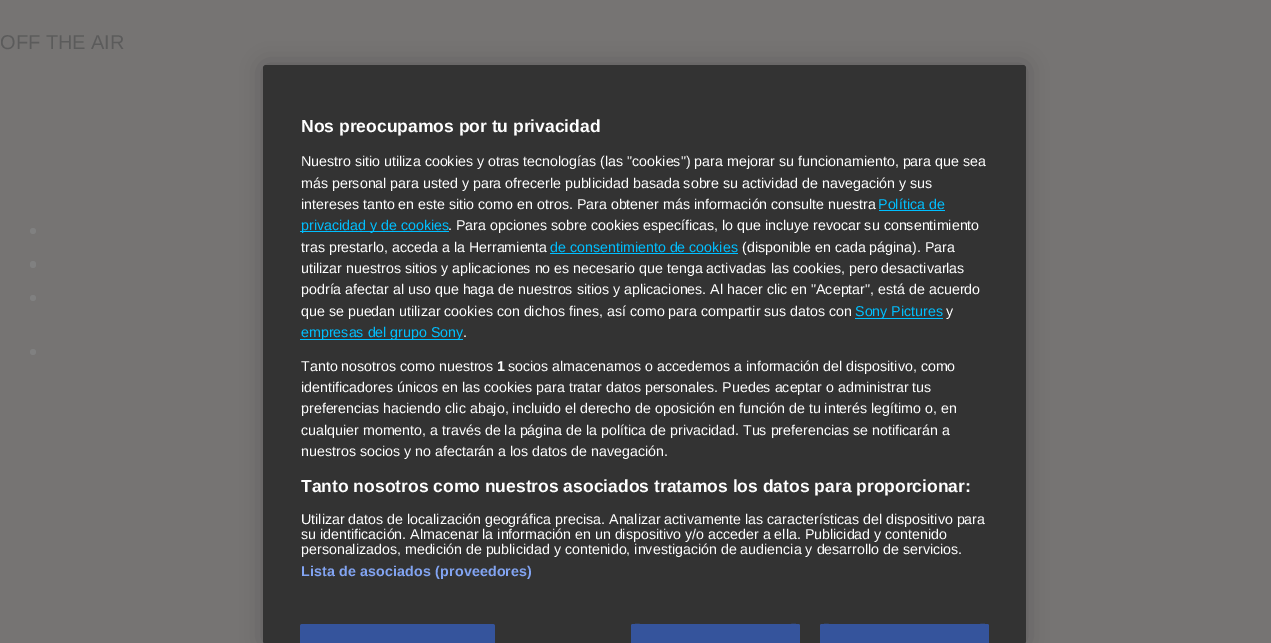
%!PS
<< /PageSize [1271 643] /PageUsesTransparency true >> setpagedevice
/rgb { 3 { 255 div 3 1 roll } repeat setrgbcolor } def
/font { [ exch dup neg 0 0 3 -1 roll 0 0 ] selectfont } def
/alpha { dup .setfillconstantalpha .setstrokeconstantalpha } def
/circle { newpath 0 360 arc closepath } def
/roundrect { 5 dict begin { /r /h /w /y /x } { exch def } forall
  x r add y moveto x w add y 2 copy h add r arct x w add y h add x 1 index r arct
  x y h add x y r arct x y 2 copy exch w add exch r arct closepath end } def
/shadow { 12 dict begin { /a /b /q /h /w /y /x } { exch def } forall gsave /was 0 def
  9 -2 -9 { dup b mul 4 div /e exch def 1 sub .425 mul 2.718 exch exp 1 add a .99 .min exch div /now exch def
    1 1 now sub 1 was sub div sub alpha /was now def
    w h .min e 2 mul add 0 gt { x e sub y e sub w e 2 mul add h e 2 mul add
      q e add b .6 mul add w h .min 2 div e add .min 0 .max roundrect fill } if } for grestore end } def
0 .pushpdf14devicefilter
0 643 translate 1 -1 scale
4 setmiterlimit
118 116 115 rgb
0 0 1271 643 rectfill
128 128 128 rgb
33 231 3 circle fill
30 261 6 7 3 roundrect fill
33 298 3 circle fill
33 352 3 circle fill
0 0 0 rgb
263 65 763 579 3 11 0.2 shadow
51 51 51 rgb
263 65 763 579 3 roundrect fill
[
  [879 210 66 1 0 191 255]
  [300 231 149 1 0 191 255]
  [550 253 188 1 0 191 255]
  [855 318 88 1 0 191 255]
  [300 339 163 1 0 191 255]
] { aload pop rgb rectfill } forall
53 84 156 rgb
302.5 624 moveto 492.5 624 lineto 494 624 495 625 495 626.5 curveto 495 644 lineto 300 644 lineto 300 626.5 lineto 300 625 301 624 302.5 624 curveto closepath fill
633.5 624 moveto 797.5 624 lineto 799 624 800 625 800 626.5 curveto 800 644 lineto 631 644 lineto 631 626.5 lineto 631 625 632 624 633.5 624 curveto closepath fill
634 624 moveto 632 624 631 625 631 626 curveto 631 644 lineto 632 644 lineto 632 617 627 625 661 625 curveto 770 625 lineto 804 625 799 617 799 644 curveto 800 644 lineto 800 626 lineto 800 625 799 624 798 624 curveto closepath fill
822.5 624 moveto 986.5 624 lineto 988 624 989 625 989 626.5 curveto 989 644 lineto 820 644 lineto 820 626.5 lineto 820 625 821 624 822.5 624 curveto closepath fill
822 624 moveto 821 624 820 625 820 626 curveto 820 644 lineto 821 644 lineto 821 617 816 625 850 625 curveto 959 625 lineto 993 625 988 617 988 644 curveto 989 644 lineto 989 626 lineto 989 625 988 624 986 624 curveto closepath fill
/LiberationSans-Regular 20 font
91 91 91 rgb
0 49 moveto (OFF THE AIR) show
/LiberationSans-Bold 17.5 font
255 255 255 rgb
301 132 moveto (Nos preocupamos por tu privacidad) show
/LiberationSans-Regular 14.25 font
[
  [(Nuestro sitio utiliza cookies y otras tecnologías \(las "cookies"\) para mejorar su funcionamiento, para que sea) 301 166]
  [(más personal para usted y para ofrecerle publicidad basada sobre su actividad de navegación y sus) 301 188]
  [(intereses tanto en este sitio como en otros. Para obtener más información consulte nuestra) 301 209]
] { aload pop moveto show } forall
0 191 255 rgb
878 209 moveto (Política de) show
301 230 moveto (privacidad y de cookies) show
255 255 255 rgb
448 230 moveto (. Para opciones sobre cookies específicas, lo que incluye revocar su consentimiento) show
301 252 moveto (tras prestarlo, acceda a la Herramienta) show
0 191 255 rgb
550 252 moveto (de consentimiento de cookies) show
255 255 255 rgb
[
  [(\(disponible en cada página\). Para) 742 252]
  [(utilizar nuestros sitios y aplicaciones no es necesario que tenga activadas las cookies, pero desactivarlas) 301 273]
  [(podría afectar al uso que haga de nuestros sitios y aplicaciones. Al hacer clic en "Aceptar", está de acuerdo) 301 294]
  [(que se puedan utilizar cookies con dichos fines, así como para compartir sus datos con) 301 316]
] { aload pop moveto show } forall
0 191 255 rgb
855 316 moveto (Sony Pictures) show
255 255 255 rgb
946 316 moveto (y) show
0 191 255 rgb
301 337 moveto (empresas del grupo Sony) show
255 255 255 rgb
463 337 moveto (.) show
301 371 moveto (Tanto nosotros como nuestros) show
/LiberationSans-Bold 14.25 font
497 371 moveto (1) show
/LiberationSans-Regular 14.25 font
[
  [(socios almacenamos o accedemos a información del dispositivo, como) 508 371]
  [(identificadores únicos en las cookies para tratar datos personales. Puedes aceptar o administrar tus) 301 392]
  [(preferencias haciendo clic abajo, incluido el derecho de oposición en función de tu interés legítimo o, en) 301 413]
  [(cualquier momento, a través de la página de la política de privacidad. Tus preferencias se notificarán a) 301 435]
  [(nuestros socios y no afectarán a los datos de navegación.) 301 456]
] { aload pop moveto show } forall
/LiberationSans-Bold 17.5 font
301 492 moveto (Tanto nosotros como nuestros asociados tratamos los datos para proporcionar:) show
/LiberationSans-Regular 14.25 font
[
  [(Utilizar datos de localización geográfica precisa. Analizar activamente las características del dispositivo para) 301 524]
  [(su identificación. Almacenar la información en un dispositivo y/o acceder a ella. Publicidad y contenido) 301 539]
  [(personalizados, medición de publicidad y contenido, investigación de audiencia y desarrollo de servicios.) 301 554]
] { aload pop moveto show } forall
/LiberationSans-Bold 14.25 font
130 164 242 rgb
301 576 moveto 0.15 0 (Lista de asociados \(proveedores\)) ashow
.poppdf14devicefilter showpage
